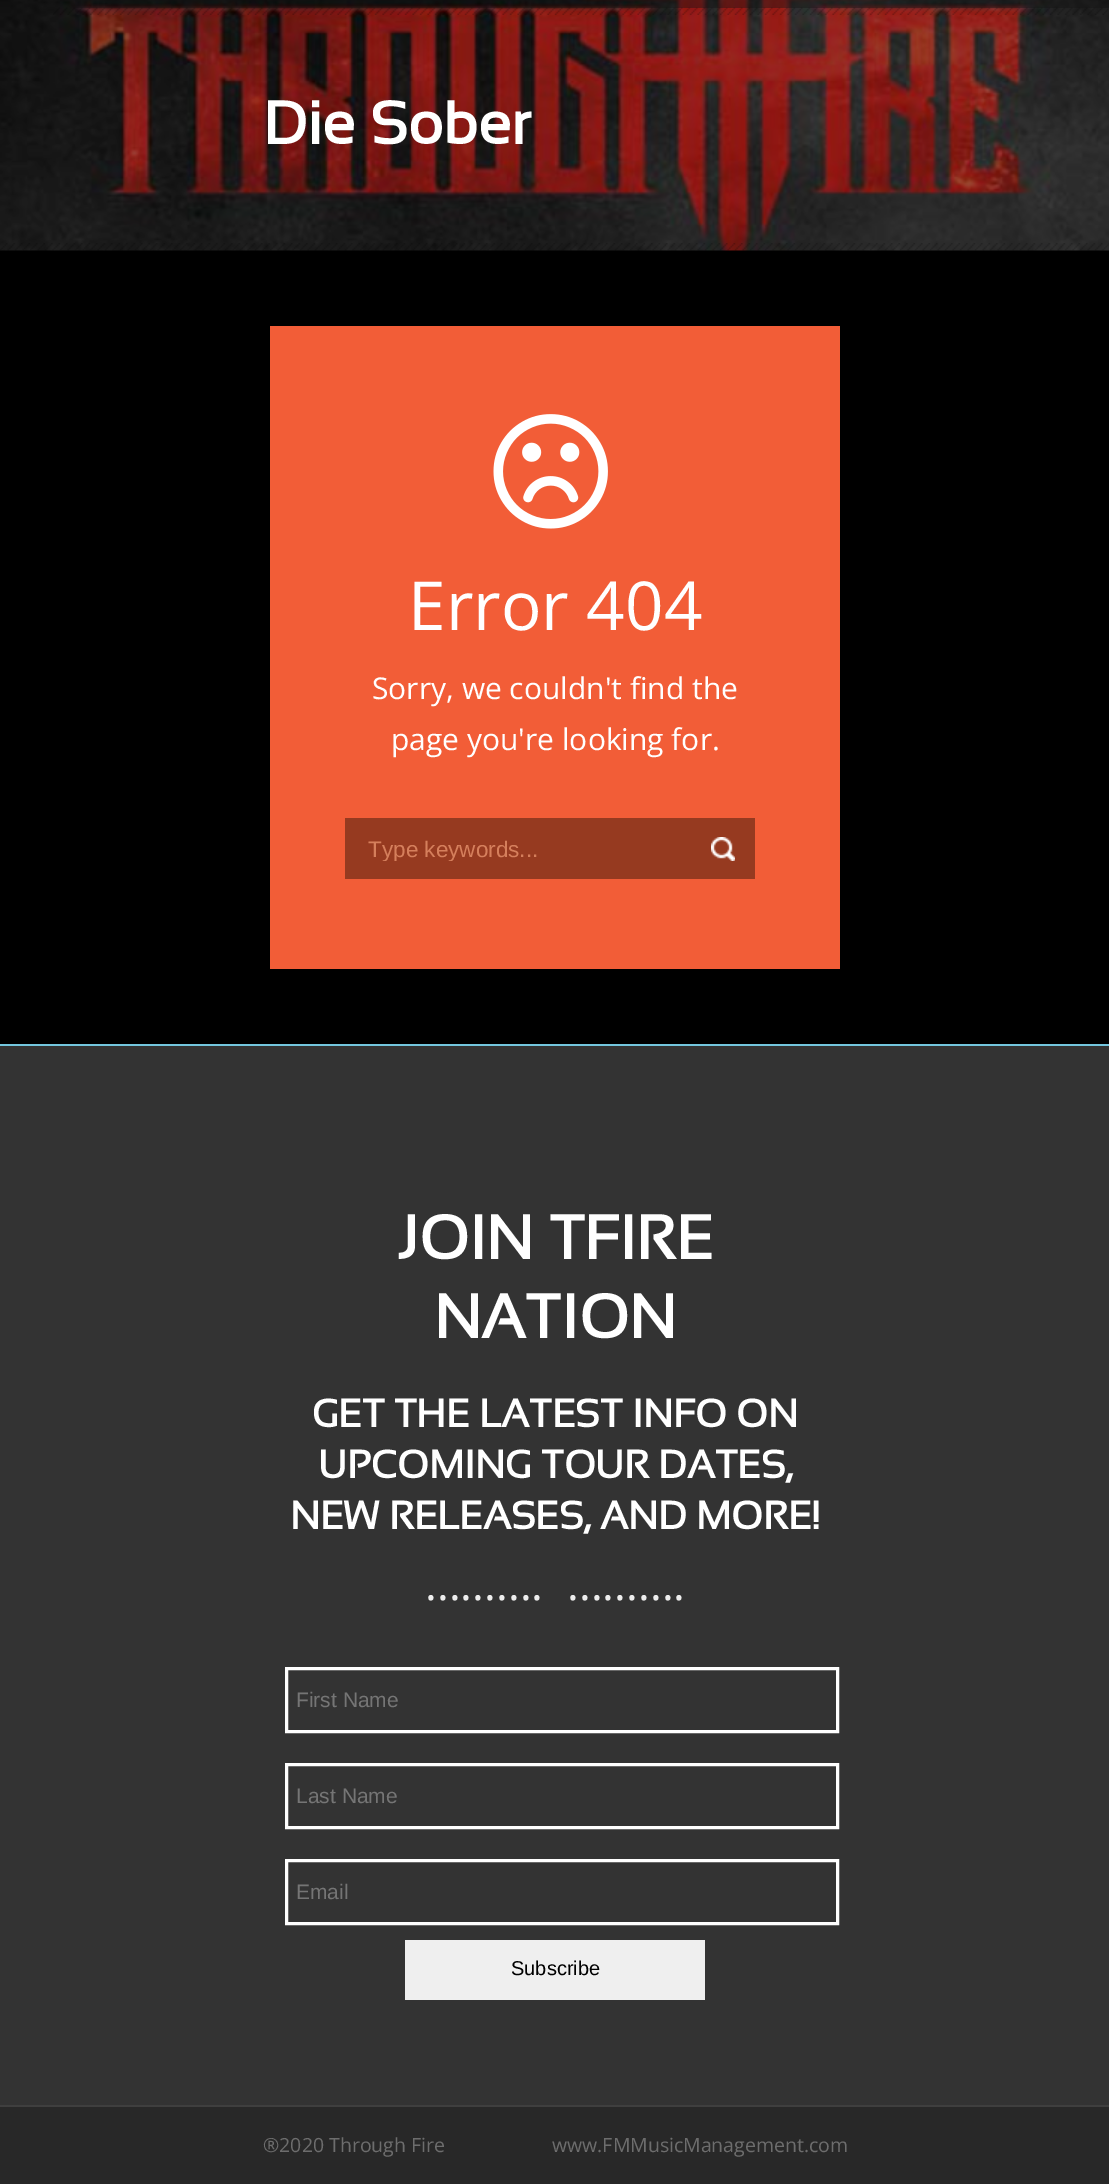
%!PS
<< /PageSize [1109 2184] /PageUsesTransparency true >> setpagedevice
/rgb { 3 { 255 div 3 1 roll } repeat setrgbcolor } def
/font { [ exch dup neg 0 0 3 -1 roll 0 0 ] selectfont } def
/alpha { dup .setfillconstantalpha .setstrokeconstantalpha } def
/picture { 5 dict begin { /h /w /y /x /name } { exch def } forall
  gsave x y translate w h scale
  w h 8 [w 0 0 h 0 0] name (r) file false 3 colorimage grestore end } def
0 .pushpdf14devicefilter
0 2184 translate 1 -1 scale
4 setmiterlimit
0 0 0 rgb
0 0 1109 2184 rectfill
(img/2.rgb) 0 0 1109 251 picture
(img/1.rgb) 53 7 1055 8 picture
0.4 alpha
17 17 17 rgb
75 0 1034 8 rectfill
1 alpha
(img/3.rgb) 0 243 1109 8 picture
242 93 55 rgb
270 326 570 643 rectfill
(img/4.rgb) 493 414 115 115 picture
150 58 32 rgb
345 818 410 61 rectfill
(img/5.rgb) 711 837 24 24 picture
51 51 51 rgb
0 1046 1109 1059 rectfill
116 198 222 rgb
0 1044 1109 2 rectfill
255 255 255 rgb
3 setlinewidth
286.5 1668.5 551 63 rectstroke
286.5 1764.5 551 63 rectstroke
286.5 1860.5 551 63 rectstroke
[
  [405 1940 300 60 239 239 239]
  [0 2107 1109 77 40 40 40]
  [0 2105 1109 2 63 63 63]
] { aload pop rgb rectfill } forall
/Sansation-Bold 60 font
255 255 255 rgb
263 144 moveto (Die Sober) show
/OpenSans-Regular 67.5 font
408 630 moveto (Error 404) show
/OpenSans-Regular 30 font
372 699 moveto (Sorry, we couldn't find the) show
391 750 moveto (page you're looking for.) show
gsave
368 836 364 25 rectclip
/LiberationSans-Regular 22.5 font
213 127 92 rgb
368 857 moveto (Type keywords...) show
grestore
/Sansation-Bold 61.5 font
398 1259 moveto (JOIN TFIRE) show
434 1338 moveto (NATION) show
/Sansation-Bold 39 font
[
  [(GET THE LATEST INFO ON) 312 1427]
  [(UPCOMING TOUR DATES,) 318 1478]
  [(NEW RELEASES, AND MORE!) 290 1529]
] { aload pop moveto show } forall
/OpenSans-Regular 45 font
238 238 238 rgb
425 1600 moveto (..........) show
567 1600 moveto (..........) show
/LiberationSans-Regular 21 font
117 117 117 rgb
[
  [(First Name) 296 1707]
  [(Last Name) 296 1803]
  [(Email) 296 1899]
] { aload pop moveto show } forall
/LiberationSans-Regular 20 font
0 0 0 rgb
511 1975 moveto (Subscribe) show
/OpenSans-Regular 19.5 font
109 109 109 rgb
263 2152 moveto (®2020 Through Fire) show
552 2152 moveto (www.FMMusicManagement.com) show
.poppdf14devicefilter showpage
